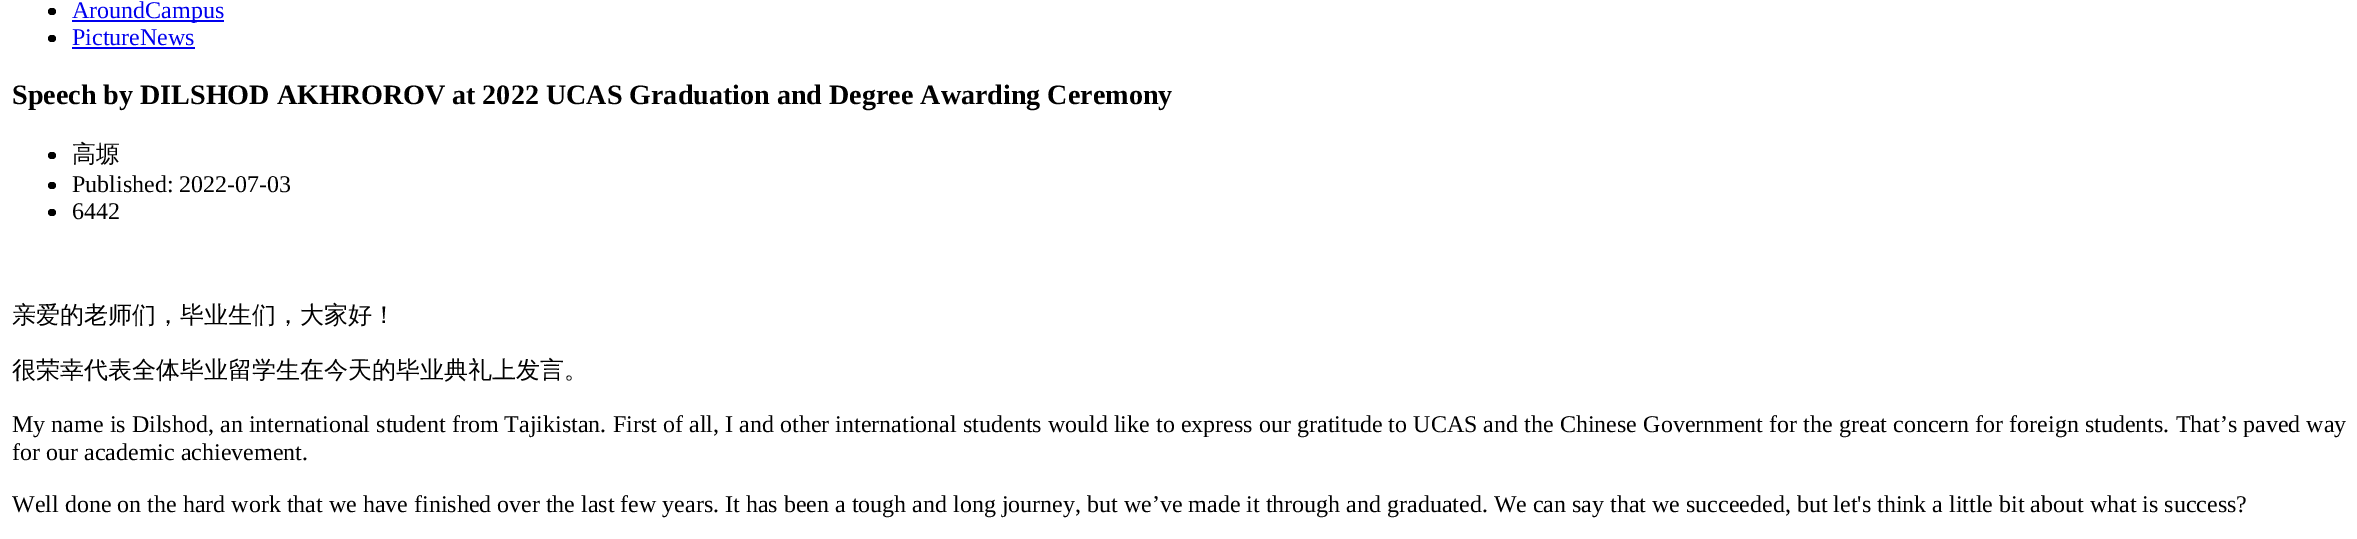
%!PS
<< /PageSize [2357 539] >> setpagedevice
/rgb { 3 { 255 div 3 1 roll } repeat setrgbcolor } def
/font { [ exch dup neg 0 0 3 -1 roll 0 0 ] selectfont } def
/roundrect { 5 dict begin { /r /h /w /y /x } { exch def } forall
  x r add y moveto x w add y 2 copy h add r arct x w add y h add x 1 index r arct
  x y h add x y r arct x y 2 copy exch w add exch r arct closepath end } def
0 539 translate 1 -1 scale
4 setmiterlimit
255 255 255 rgb
0 0 2357 539 rectfill
0 0 0 rgb
48 8 8 7 3.5 roundrect fill
0 0 238 rgb
72 20 152 2 rectfill
0 0 0 rgb
48 35 8 7 3.5 roundrect fill
0 0 238 rgb
72 47 123 2 rectfill
0 0 0 rgb
48 152 8 7 3.5 roundrect fill
48 182 8 7 3.5 roundrect fill
48 209 8 7 3.5 roundrect fill
/LiberationSerif-Regular 24 font
0 0 238 rgb
72 18 moveto (AroundCampus) show
72 45 moveto (PictureNews) show
/LiberationSerif-Bold 28.1 font
0 0 0 rgb
12 104 moveto (Speech by DILSHOD AKHROROV) show
452 104 moveto (at 2022 UCAS Graduation and Degree Awarding Ceremony) show
/WenQuanYiZenHei-Medium 24 font
72 162 moveto (高塬) show
/LiberationSerif-Regular 24 font
72 192 moveto (Published: 2022-07-03) show
72 219 moveto (6442) show
/WenQuanYiZenHei-Medium 24 font
12 323 moveto (亲爱的老师们，毕业生们，大家好！) show
12 378 moveto (很荣幸代表全体毕业留学生在今天的毕业典礼上发言。) show
/LiberationSerif-Regular 24 font
12 432 moveto 0.15 0 32 (My name is Dilshod, an international student from Tajikistan. First of all, I and other international students would like to express our gratitude to UCAS and the Chinese Government for the great concern for foreign students. That’s paved way) widthshow
12 460 moveto (for our academic achievement.) show
12 512 moveto (Well done on the hard work that we have finished over the last few years. It has been a tough and long journey, but we’ve made it through and graduated. We can say that we succeeded, but let's think a little bit about what is success?) show
showpage
